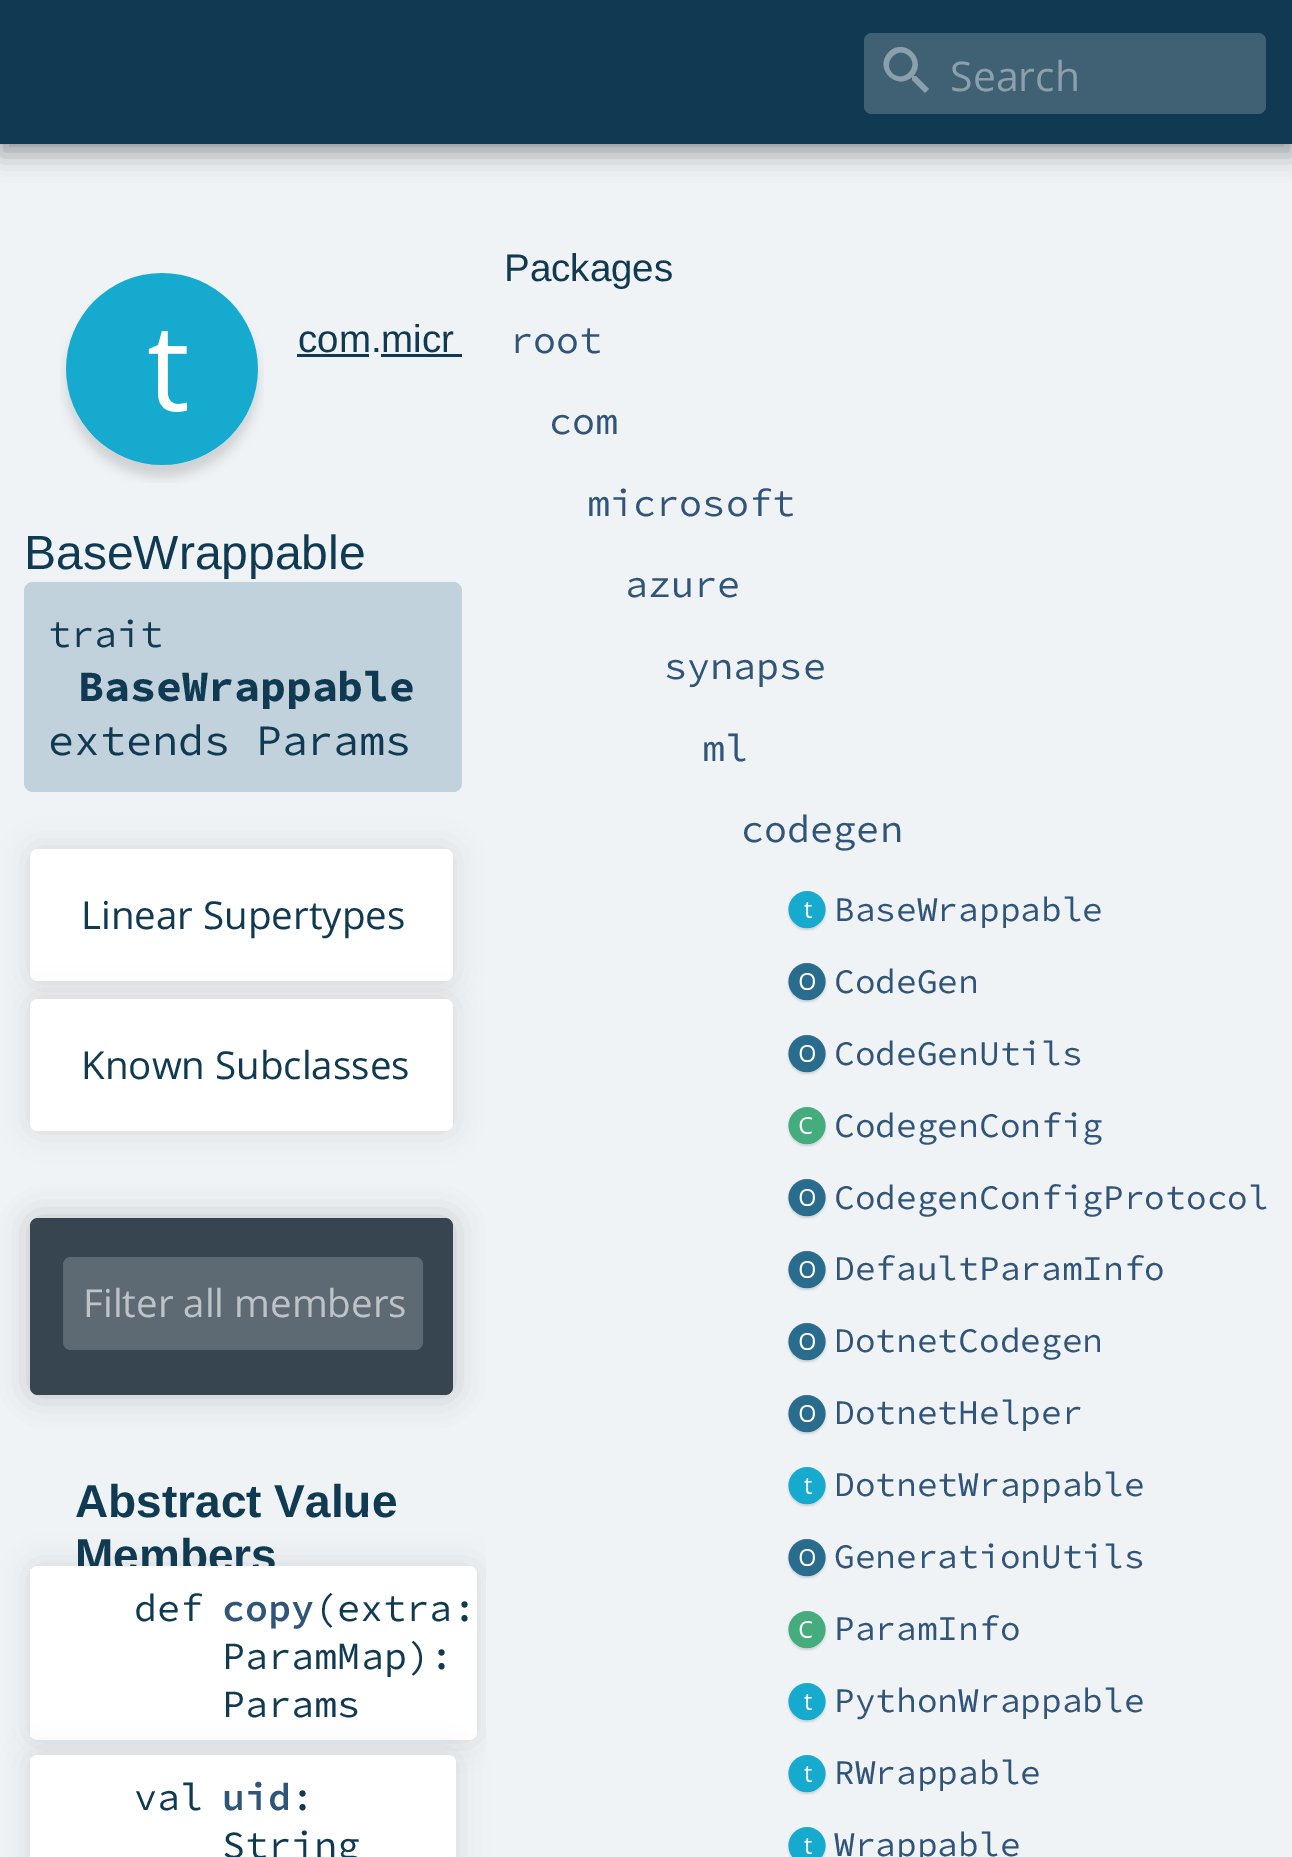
%!PS
<< /PageSize [1292 1857] /PageUsesTransparency true >> setpagedevice
/rgb { 3 { 255 div 3 1 roll } repeat setrgbcolor } def
/font { [ exch dup neg 0 0 3 -1 roll 0 0 ] selectfont } def
/alpha { dup .setfillconstantalpha .setstrokeconstantalpha } def
/roundrect { 5 dict begin { /r /h /w /y /x } { exch def } forall
  x r add y moveto x w add y 2 copy h add r arct x w add y h add x 1 index r arct
  x y h add x y r arct x y 2 copy exch w add exch r arct closepath end } def
/shadow { 12 dict begin { /a /b /q /h /w /y /x } { exch def } forall gsave /was 0 def
  9 -2 -9 { dup b mul 4 div /e exch def 1 sub .425 mul 2.718 exch exp 1 add a .99 .min exch div /now exch def
    1 1 now sub 1 was sub div sub alpha /was now def
    w h .min e 2 mul add 0 gt { x e sub y e sub w e 2 mul add h e 2 mul add
      q e add b .6 mul add w h .min 2 div e add .min 0 .max roundrect fill } if } for grestore end } def
/picture { 5 dict begin { /h /w /y /x /name } { exch def } forall
  gsave x y translate w h scale
  w h 8 [w 0 0 h 0 0] name (r) file false 3 colorimage grestore end } def
0 .pushpdf14devicefilter
0 1857 translate 1 -1 scale
4 setmiterlimit
240 243 246 rgb
0 0 1292 1857 rectfill
0 0 0 rgb
0 12 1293 144 0 12 0.28 shadow
0 0 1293 144 0 6 0.18 shadow
16 58 81 rgb
0 0 1292 144 rectfill
64 97 116 rgb
864 33 402 81 8 roundrect fill
140 160 172 rgb
892 73 moveto 903 84 920 67 909 56 curveto 898 45 882 62 892 73 curveto closepath 916 76 moveto 929 89 lineto 925 93 lineto 912 80 lineto 912 78 lineto 912 77 lineto 896 91 873 68 889 52 curveto 904 37 927 59 914 75 curveto 914 76 lineto closepath fill
(img/1.rgb) 60 273 204 210 picture
16 58 81 rgb
297 354 72 3 rectfill
381 354 81 3 rectfill
194 210 220 rgb
24 582 438 210 9 roundrect fill
0 0 0 rgb
30 849 423 132 8 15 0.1 shadow
255 255 255 rgb
30 849 423 132 8 roundrect fill
0 0 0 rgb
30 999 423 132 8 15 0.1 shadow
255 255 255 rgb
30 999 423 132 8 roundrect fill
0 0 0 rgb
30 1218 423 177 8 15 0.2 shadow
54 69 80 rgb
30 1218 423 177 8 roundrect fill
94 106 115 rgb
63 1257 360 93 8 roundrect fill
gsave
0 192 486 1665 rectclip
0 0 0 rgb
30 1566 447 174 8 15 0.1 shadow
grestore
(img/2.rgb) 787 891 40 40 picture
(img/3.rgb) 787 963 40 40 picture
(img/3.rgb) 787 1035 40 40 picture
(img/4.rgb) 787 1107 40 40 picture
(img/3.rgb) 787 1179 40 40 picture
(img/5.rgb) 787 1251 40 40 picture
(img/3.rgb) 787 1323 40 40 picture
(img/3.rgb) 787 1395 40 40 picture
(img/2.rgb) 787 1467 40 40 picture
(img/3.rgb) 787 1539 40 40 picture
(img/4.rgb) 787 1611 40 40 picture
(img/2.rgb) 787 1683 40 40 picture
(img/2.rgb) 787 1755 40 40 picture
(img/6.rgb) 787 1827 40 30 picture
/OpenSans-Regular 41 font
140 160 172 rgb
950 91 moveto (Search) show
/LiberationSans-Regular 38.5 font
16 58 81 rgb
298 352 moveto (com.micr) show
/LiberationSans-Regular 48 font
24 569 moveto (BaseWrappable) show
/SourceCodePro-Regular 38.5 font
48 647 moveto (trait) show
/SourceCodePro-Bold 43.25 font
78 701 moveto (BaseWrappable) show
/SourceCodePro-Regular 43.25 font
48 755 moveto (extends Params) show
/OpenSans-Regular 38.5 font
81 929 moveto (Linear Supertypes) show
81 1079 moveto (Known Subclasses) show
191 195 199 rgb
83 1317 moveto (Filter all members) show
/LiberationSans-Bold 46 font
16 58 81 rgb
75 1517 moveto (Abstract Value) show
75 1571 moveto (Members) show
255 255 255 rgb
30 1566 447 174 8 roundrect fill
30 1569 2 168 rectfill
/SourceCodePro-Regular 38.5 font
16 58 81 rgb
134 1621 moveto (def) show
/SourceCodePro-SemiBold 38.5 font
49 84 121 rgb
222 1621 moveto (copy) show
/SourceCodePro-Regular 38.5 font
16 58 81 rgb
[
  [(\(extra:) 314 1621]
  [(ParamMap\):) 222 1669]
  [(Params) 222 1717]
] { aload pop moveto show } forall
0 0 0 rgb
30 1755 426 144 8 15 0.1 shadow
255 255 255 rgb
38 1755 moveto 448 1755 lineto 452.5 1755 456 1758.5 456 1763 curveto 456 1857 lineto 30 1857 lineto 30 1763 lineto 30 1758.5 33.5 1755 38 1755 curveto closepath fill
30 1758 2 4 rectfill
16 58 81 rgb
134 1810 moveto (val) show
/SourceCodePro-SemiBold 38.5 font
49 84 121 rgb
222 1810 moveto (uid) show
/SourceCodePro-Regular 38.5 font
16 58 81 rgb
291 1810 moveto (:) show
222 1858 moveto (String) show
/LiberationSans-Regular 38.5 font
504 281 moveto (Packages) show
/SourceCodePro-Regular 38.5 font
49 84 121 rgb
[
  [(root) 510 353]
  [(com) 549 434]
  [(microsoft) 587 516]
  [(azure) 625 597]
  [(synapse) 664 679]
  [(ml) 702 761]
  [(codegen) 741 842]
] { aload pop moveto show } forall
/SourceCodePro-Regular 34.5 font
[
  [(BaseWrappable) 834 921]
  [(CodeGen) 834 993]
  [(CodeGenUtils) 834 1065]
  [(CodegenConfig) 834 1137]
  [(CodegenConfigProtocol) 834 1209]
  [(DefaultParamInfo) 834 1280]
  [(DotnetCodegen) 834 1352]
  [(DotnetHelper) 834 1424]
  [(DotnetWrappable) 834 1496]
  [(GenerationUtils) 834 1568]
  [(ParamInfo) 834 1640]
  [(PythonWrappable) 834 1712]
  [(RWrappable) 834 1784]
  [(Wrappable) 834 1856]
] { aload pop moveto show } forall
.poppdf14devicefilter showpage
